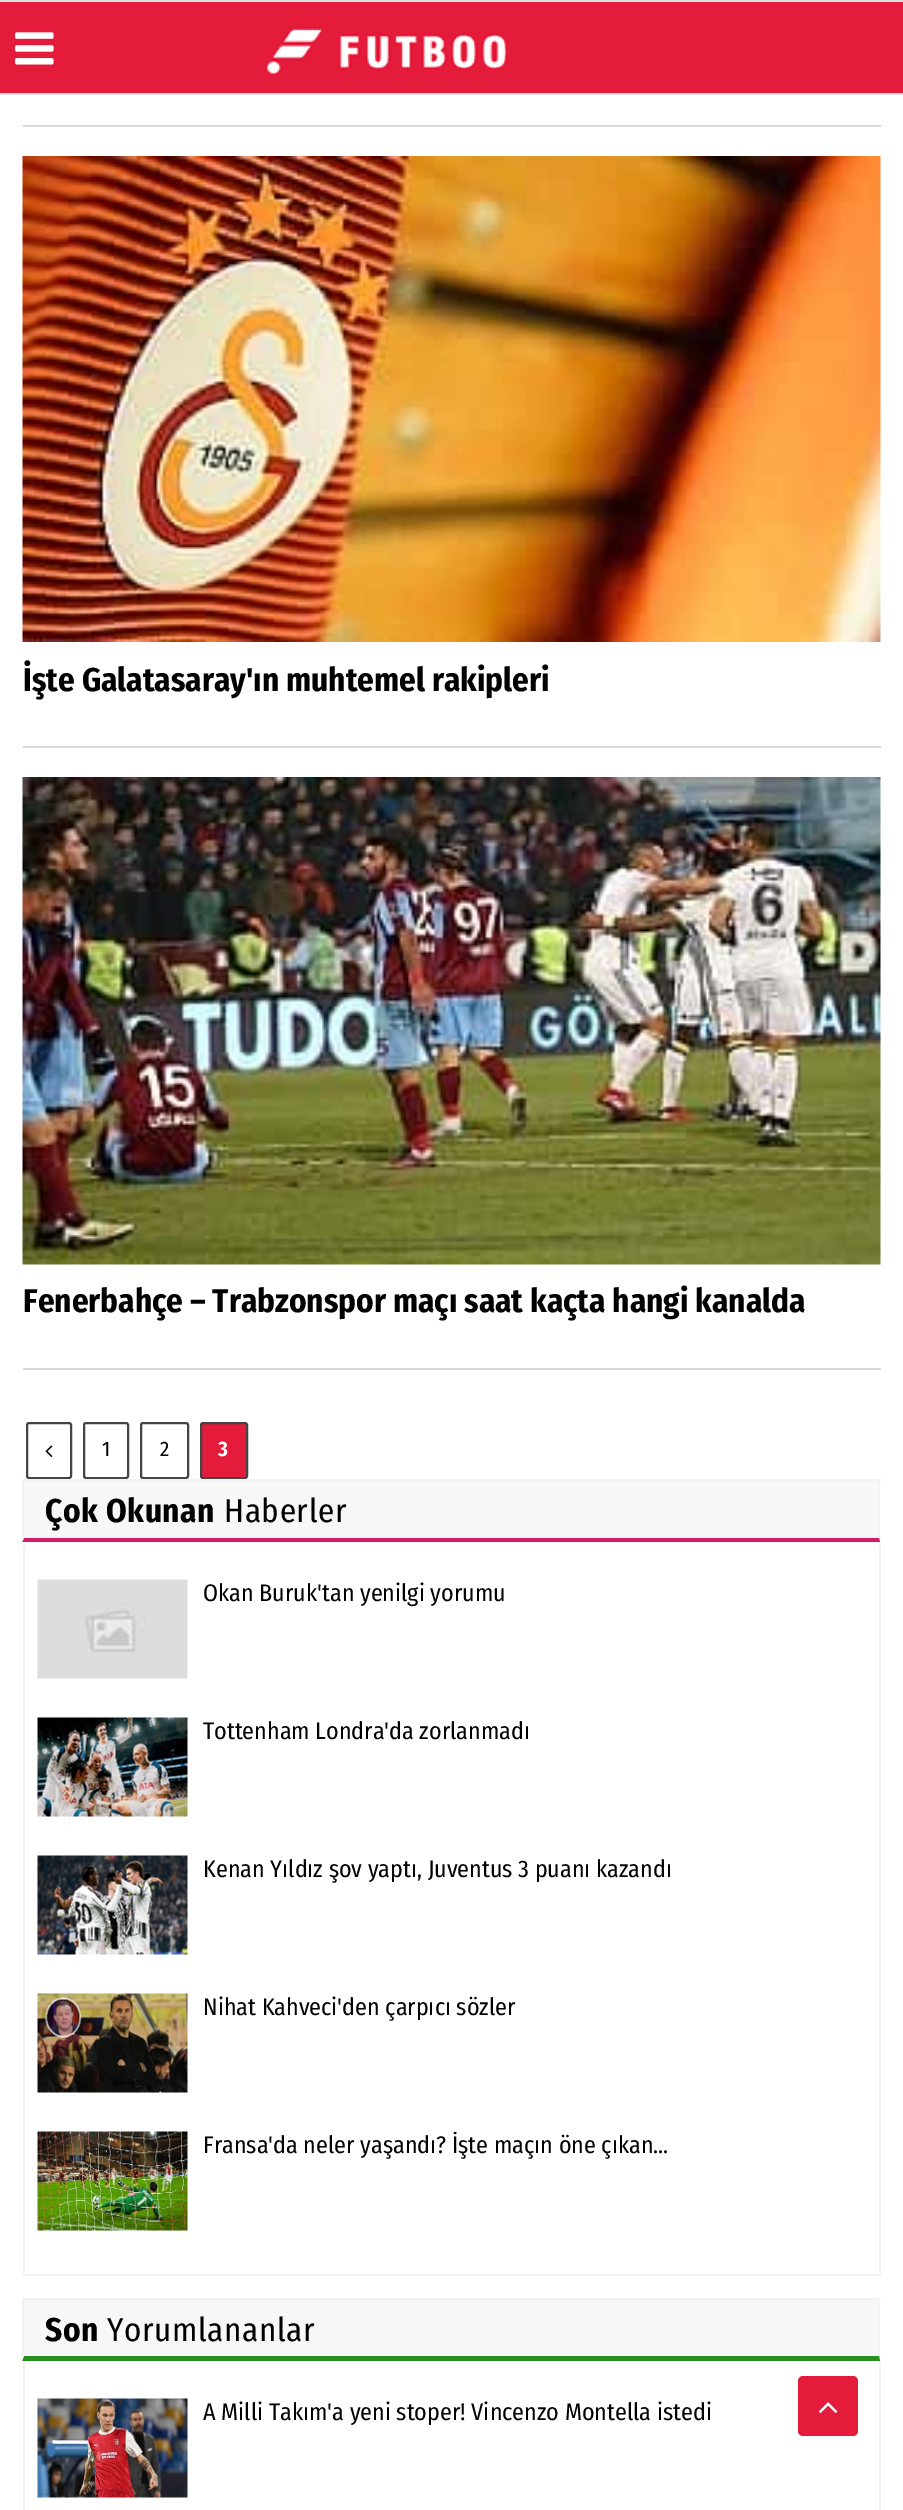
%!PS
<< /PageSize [903 2510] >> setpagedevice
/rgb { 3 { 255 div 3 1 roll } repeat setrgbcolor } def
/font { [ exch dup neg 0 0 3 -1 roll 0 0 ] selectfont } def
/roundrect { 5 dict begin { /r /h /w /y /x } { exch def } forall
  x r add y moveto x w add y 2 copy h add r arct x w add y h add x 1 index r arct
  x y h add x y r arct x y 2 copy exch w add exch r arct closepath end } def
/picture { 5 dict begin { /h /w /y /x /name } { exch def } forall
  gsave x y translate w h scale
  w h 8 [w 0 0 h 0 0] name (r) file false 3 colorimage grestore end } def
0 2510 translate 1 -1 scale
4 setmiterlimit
255 255 255 rgb
0 0 903 2510 rectfill
[
  [0 2 903 91 228 27 59]
  [0 0 903 2 222 222 222]
  [0 93 903 2 222 222 222]
] { aload pop rgb rectfill } forall
(img/1.rgb) 15 32 39 33 picture
(img/2.rgb) 265 27 242 48 picture
216 216 216 rgb
23 125 858 2 rectfill
(img/3.rgb) 22 156 859 486 picture
23 746 858 2 rectfill
(img/4.rgb) 22 777 859 488 picture
23 1368 858 2 rectfill
68 68 68 rgb
2 setlinewidth
27 1423 44 55 2 roundrect stroke
(img/5.rgb) 45 1445 8 12 picture
84 1423 44 55 2 roundrect stroke
141 1423 47 55 2 roundrect stroke
228 27 59 rgb
201 1423 46 55 2 roundrect gsave fill grestore
68 68 68 rgb
stroke
247 247 247 rgb
24 1481 855 57 rectfill
242 242 242 rgb
23 1479 858 2 rectfill
880 1479 moveto 880 1542 lineto 879 1538 lineto 879 1480 lineto closepath fill
212 27 101 rgb
880 1542 moveto 22 1542 lineto 24 1538 lineto 879 1538 lineto closepath fill
242 242 242 rgb
22 1542 moveto 22 1479 lineto 24 1480 lineto 24 1538 lineto closepath fill
[
  [879 1542 2 734 242 242 242]
  [23 2274 858 2 242 242 242]
  [23 1542 2 734 242 242 242]
] { aload pop rgb rectfill } forall
(img/6.rgb) 37 1579 151 100 picture
(img/7.rgb) 37 1717 151 100 picture
(img/8.rgb) 37 1855 151 100 picture
(img/9.rgb) 37 1993 151 100 picture
(img/10.rgb) 37 2131 151 100 picture
247 247 247 rgb
24 2300 855 56 rectfill
242 242 242 rgb
23 2298 858 2 rectfill
880 2298 moveto 880 2361 lineto 879 2356 lineto 879 2300 lineto closepath fill
37 143 31 rgb
880 2361 moveto 22 2361 lineto 24 2356 lineto 879 2356 lineto closepath fill
242 242 242 rgb
22 2361 moveto 22 2298 lineto 24 2300 lineto 24 2356 lineto closepath fill
879 2361 2 149 rectfill
23 2361 2 149 rectfill
(img/11.rgb) 37 2398 151 100 picture
228 27 59 rgb
798 2376 60 60 5 roundrect fill
(img/12.rgb) 819 2402 19 11 picture
/FiraSansCondensed-Bold 33 font
0 0 0 rgb
23 691 moveto (İşte Galatasaray'ın muhtemel rakipleri) show
23 1312 moveto (Fenerbahçe – Trabzonspor maçı saat kaçta hangi kanalda) show
/FiraSansCondensed-Regular 21 font
102 1456 moveto (1) show
160 1456 moveto (2) show
/FiraSansCondensed-Bold 21 font
255 255 255 rgb
218 1456 moveto (3) show
/FiraSansCondensed-Bold 33 font
0 0 0 rgb
45 1522 moveto 0.6 0 (Çok Okunan) ashow
/FiraSansCondensed-Regular 33 font
224 1522 moveto 0.6 0 (Haberler) ashow
/FiraSansCondensed-Regular 24 font
203 1601 moveto (Okan Buruk'tan yenilgi yorumu) show
gsave
203 1718 663 105 rectclip
203 1739 moveto (Tottenham Londra'da zorlanmadı) show
grestore
203 1877 moveto (Kenan Yıldız şov yaptı, Juventus 3 puanı kazandı) show
203 2015 moveto (Nihat Kahveci'den çarpıcı sözler) show
gsave
203 2132 663 105 rectclip
203 2153 moveto (Fransa'da neler yaşandı? İşte maçın öne çıkan...) show
grestore
/FiraSansCondensed-Bold 33 font
45 2341 moveto 0.6 0 (Son) ashow
/FiraSansCondensed-Regular 33 font
107 2341 moveto 0.6 0 (Yorumlananlar) ashow
/FiraSansCondensed-Regular 24 font
203 2420 moveto (A Milli Takım'a yeni stoper! Vincenzo Montella istedi) show
showpage
